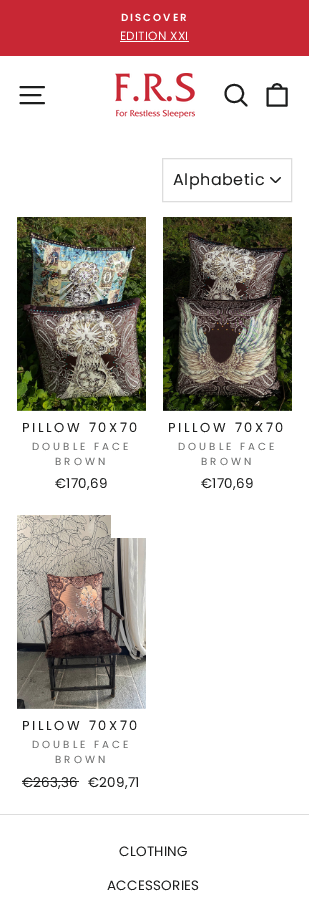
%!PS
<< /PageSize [309 907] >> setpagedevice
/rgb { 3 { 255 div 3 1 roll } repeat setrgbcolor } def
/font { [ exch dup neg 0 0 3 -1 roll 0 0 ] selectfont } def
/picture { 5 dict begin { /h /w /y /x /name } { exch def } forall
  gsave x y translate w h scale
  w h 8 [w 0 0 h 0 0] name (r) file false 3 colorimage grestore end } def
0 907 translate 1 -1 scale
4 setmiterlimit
255 255 255 rgb
0 0 309 907 rectfill
200 39 52 rgb
0 0 309 56 rectfill
255 255 255 rgb
120 41 69 1 rectfill
28 29 29 rgb
1.9 setlinewidth
1 setlinecap
1 setlinejoin
20.5 87 moveto 44 87 lineto 20.5 95 moveto 40.5 95 lineto 20.5 103 moveto 44 103 lineto stroke
(img/1.rgb) 115 73 80 45 picture
243 93.5 moveto 243 105 225.5 105 225.5 93.5 curveto 225.5 82 243 82 243 93.5 curveto closepath 246.5 105.5 moveto 240.5 99.5 lineto stroke
267.5 88.5 moveto 286.5 88.5 lineto 286.5 105.5 lineto 267.5 105.5 lineto closepath 272.5 88.5 moveto 272.5 82.5 281.5 82.5 281.5 88.5 curveto stroke
(img/2.rgb) 270 177 11 6 picture
221 221 221 rgb
1 setlinewidth
0 setlinecap
0 setlinejoin
162.5 158.5 129 43 rectstroke
(img/3.rgb) 17 217 129 194 picture
(img/4.rgb) 163 217 129 194 picture
(img/5.rgb) 17 515 129 194 picture
[
  [111 515 35 23 255 255 255]
  [22 781 57 1 28 29 29]
  [0 814 309 1 221 221 221]
] { aload pop rgb rectfill } forall
/Poppins-SemiBold 10.25 font
255 255 255 rgb
121 21 moveto 2 0 (DISCOVER) ashow
/Poppins-Regular 12 font
120 40 moveto 0.25 0 (EDITION XXI) ashow
/Poppins-Regular 16 font
28 29 29 rgb
173 185 moveto 0.5 0 (Alphabetic) ashow
/Poppins-Regular 13 font
22 432 moveto 2.6 0 (PILLOW 70X70) ashow
/Poppins-Regular 10.25 font
107 108 108 rgb
32 450 moveto 3 0 (DOUBLE FACE) ashow
55 465 moveto 3 0 (BROWN) ashow
/Poppins-Regular 13.5 font
28 29 29 rgb
55 488 moveto 0.25 0 (€170,69) ashow
/Poppins-Regular 13 font
168 432 moveto 2.6 0 (PILLOW 70X70) ashow
/Poppins-Regular 10.25 font
107 108 108 rgb
178 450 moveto 3 0 (DOUBLE FACE) ashow
201 465 moveto 3 0 (BROWN) ashow
/Poppins-Regular 13.5 font
28 29 29 rgb
201 488 moveto 0.25 0 (€170,69) ashow
/Poppins-Regular 13 font
22 730 moveto 2.6 0 (PILLOW 70X70) ashow
/Poppins-Regular 10.25 font
107 108 108 rgb
32 748 moveto 3 0 (DOUBLE FACE) ashow
55 763 moveto 3 0 (BROWN) ashow
/Poppins-Regular 13.5 font
28 29 29 rgb
22 787 moveto 0.25 0 (€263,36) ashow
88 787 moveto 0.25 0 (€209,71) ashow
119 856 moveto 0.25 0 (CLOTHING) ashow
107 890 moveto 0.25 0 (ACCESSORIES) ashow
showpage
